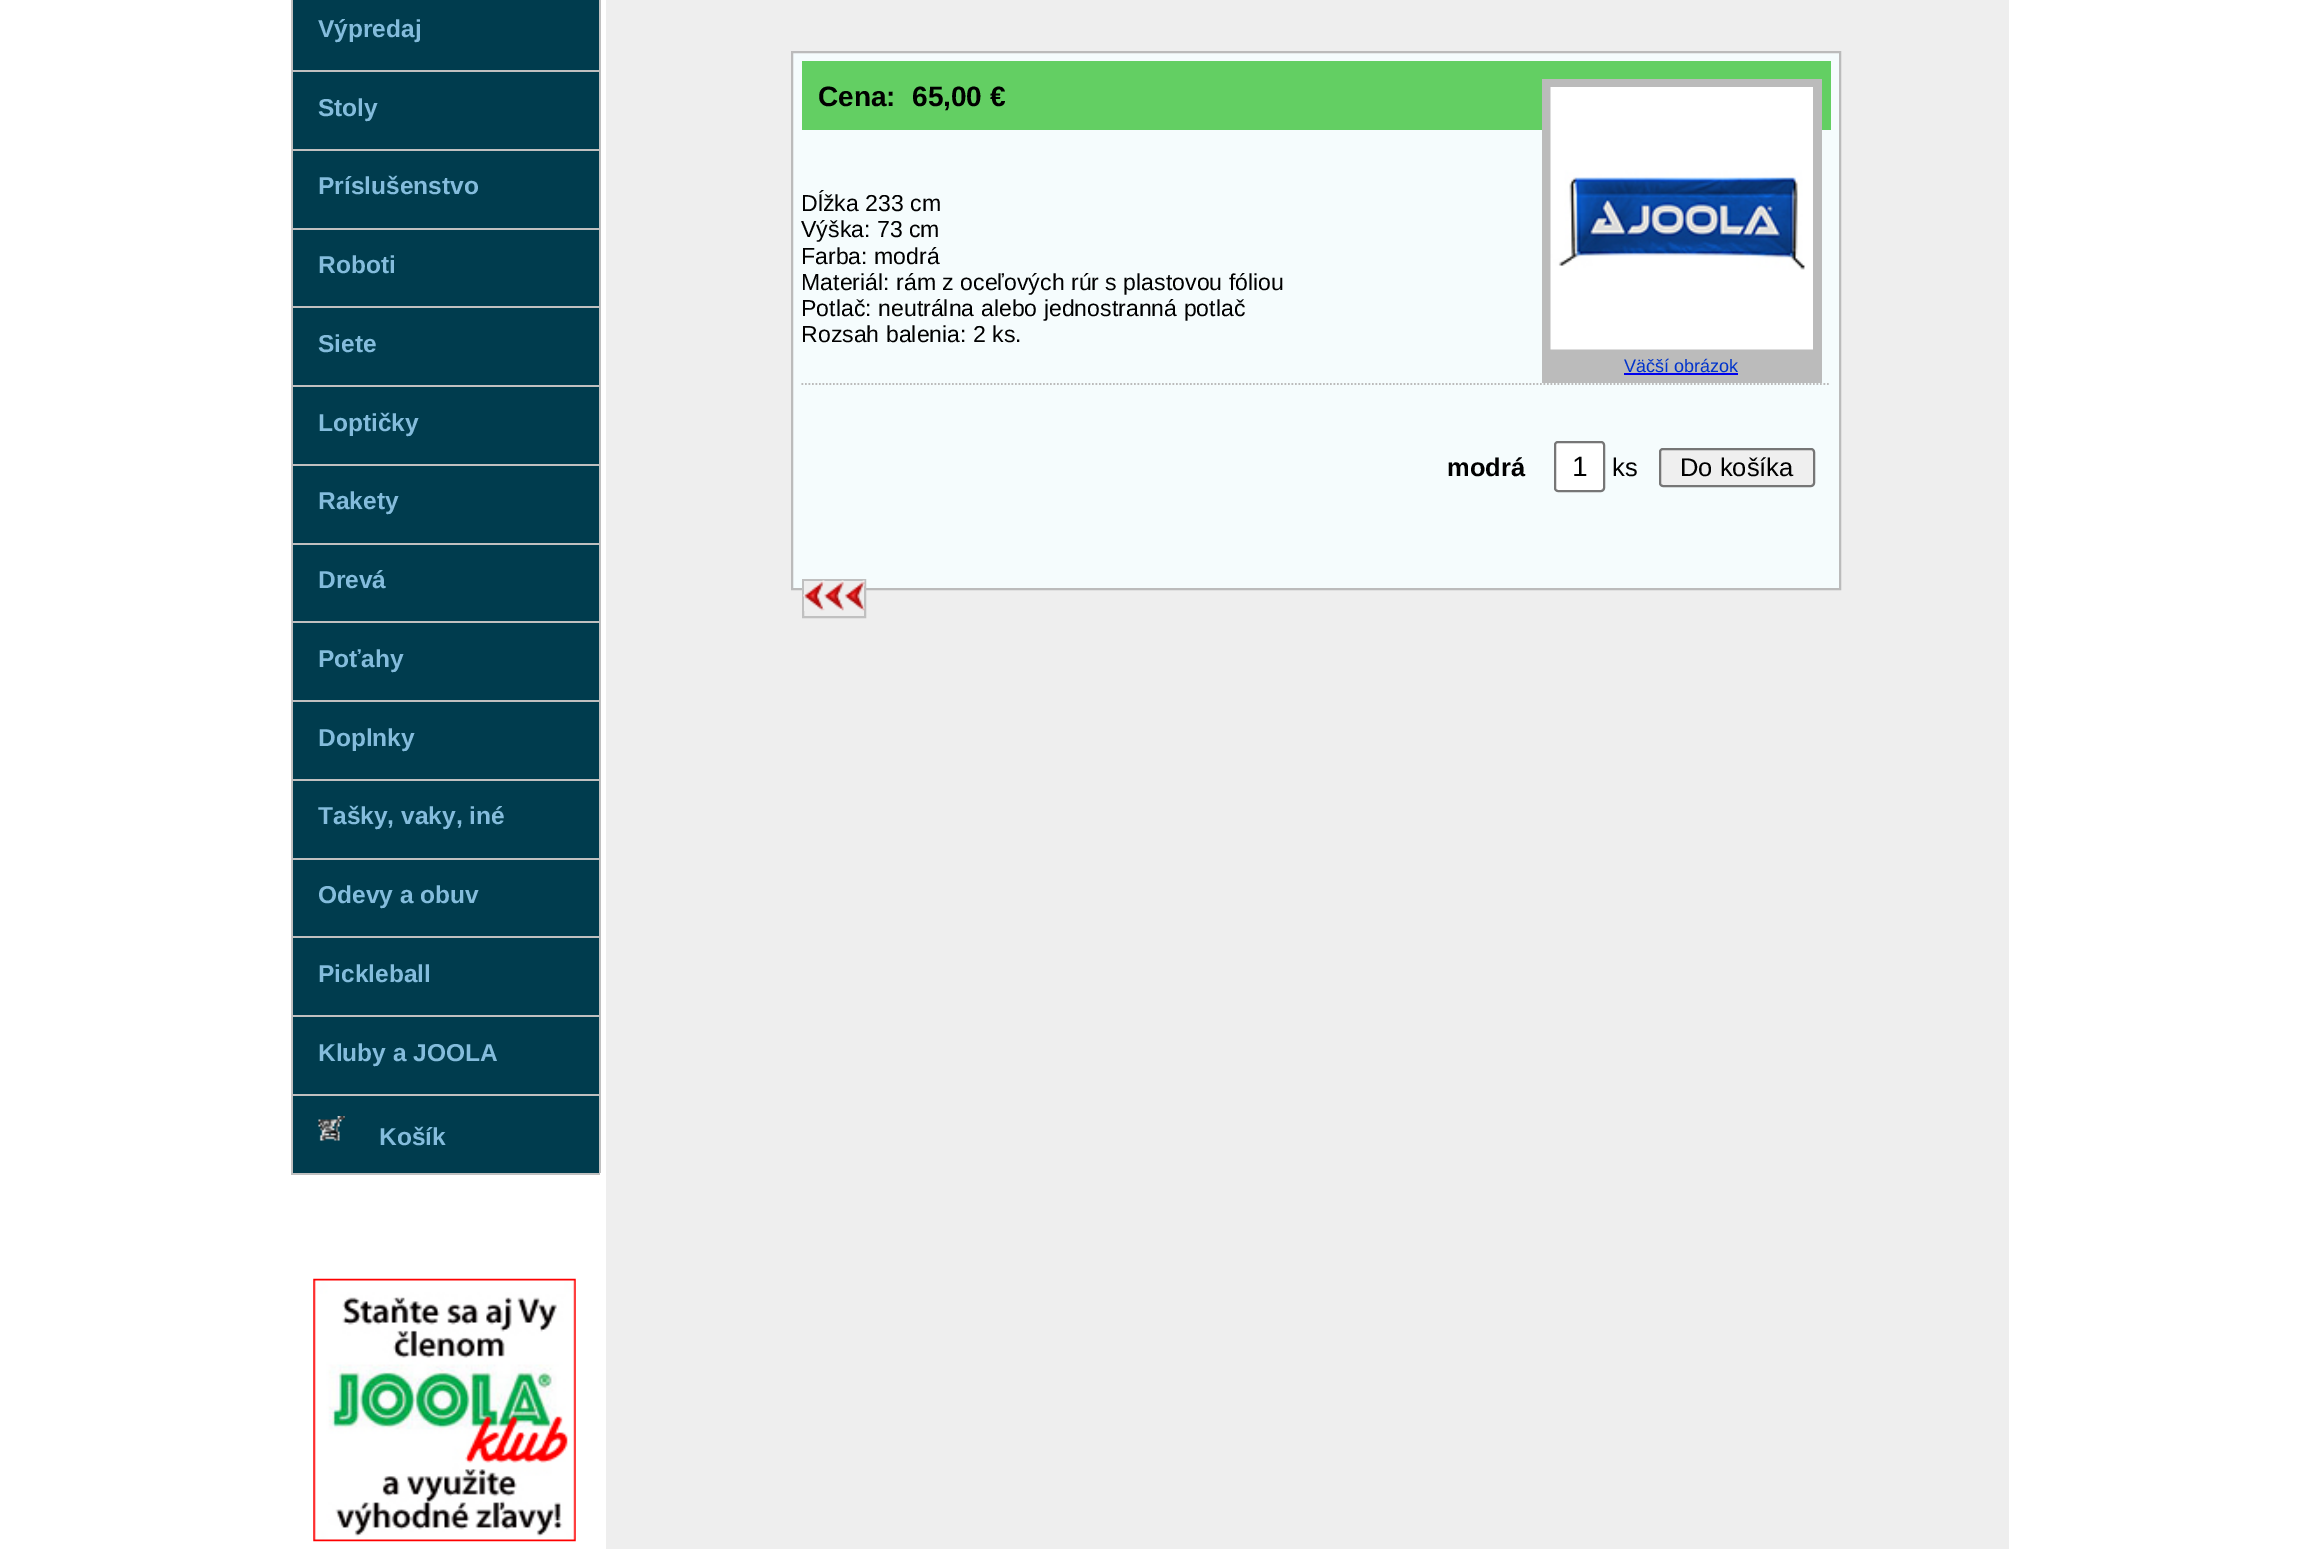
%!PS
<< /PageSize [2314 1555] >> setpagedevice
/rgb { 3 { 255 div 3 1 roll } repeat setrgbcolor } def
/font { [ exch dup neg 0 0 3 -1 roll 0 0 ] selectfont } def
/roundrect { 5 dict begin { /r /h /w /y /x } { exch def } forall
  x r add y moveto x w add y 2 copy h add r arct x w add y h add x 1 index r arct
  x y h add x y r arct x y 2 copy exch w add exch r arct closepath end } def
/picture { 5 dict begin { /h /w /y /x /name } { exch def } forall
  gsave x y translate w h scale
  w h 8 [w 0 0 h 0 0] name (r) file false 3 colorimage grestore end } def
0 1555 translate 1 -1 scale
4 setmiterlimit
255 255 255 rgb
0 0 2314 1555 rectfill
[
  [293 0 306 70 0 60 78]
  [599 0 2 70 192 192 192]
  [291 0 2 70 192 192 192]
  [293 72 306 77 0 60 78]
  [291 70 309 2 192 192 192]
  [599 70 2 79 192 192 192]
  [291 70 2 79 192 192 192]
  [293 151 306 77 0 60 78]
  [291 149 309 2 192 192 192]
  [599 149 2 79 192 192 192]
  [291 149 2 79 192 192 192]
  [293 230 306 76 0 60 78]
  [291 228 309 2 192 192 192]
  [599 228 2 78 192 192 192]
  [291 228 2 78 192 192 192]
  [293 308 306 77 0 60 78]
  [291 306 309 2 192 192 192]
  [599 306 2 79 192 192 192]
  [291 306 2 79 192 192 192]
  [293 387 306 77 0 60 78]
  [291 385 309 2 192 192 192]
  [599 385 2 79 192 192 192]
  [291 385 2 79 192 192 192]
  [293 466 306 77 0 60 78]
  [291 464 309 2 192 192 192]
  [599 464 2 79 192 192 192]
  [291 464 2 79 192 192 192]
  [293 545 306 76 0 60 78]
  [291 543 309 2 192 192 192]
  [599 543 2 78 192 192 192]
  [291 543 2 78 192 192 192]
  [293 623 306 77 0 60 78]
  [291 621 309 2 192 192 192]
  [599 621 2 79 192 192 192]
  [291 621 2 79 192 192 192]
  [293 702 306 77 0 60 78]
  [291 700 309 2 192 192 192]
  [599 700 2 79 192 192 192]
  [291 700 2 79 192 192 192]
  [293 781 306 77 0 60 78]
  [291 779 309 2 192 192 192]
  [599 779 2 79 192 192 192]
  [291 779 2 79 192 192 192]
  [293 860 306 76 0 60 78]
  [291 858 309 2 192 192 192]
  [599 858 2 78 192 192 192]
  [291 858 2 78 192 192 192]
  [293 938 306 77 0 60 78]
  [291 936 309 2 192 192 192]
  [599 936 2 79 192 192 192]
  [291 936 2 79 192 192 192]
  [293 1017 306 77 0 60 78]
  [291 1015 309 2 192 192 192]
  [599 1015 2 79 192 192 192]
  [291 1015 2 79 192 192 192]
  [291 1173 309 2 192 192 192]
  [293 1096 306 77 0 60 78]
  [291 1094 309 2 192 192 192]
  [599 1094 2 79 192 192 192]
  [291 1094 2 79 192 192 192]
] { aload pop rgb rectfill } forall
(img/1.rgb) 318 1116 27 25 picture
(img/2.rgb) 313 1278 263 264 picture
238 238 238 rgb
606 0 1403 1549 rectfill
245 252 253 rgb
792 52 moveto 1840 52 lineto 1840 589 lineto 792 589 lineto closepath gsave fill grestore
187 187 187 rgb
2 setlinewidth
stroke
99 207 99 rgb
802 61 1029 69 rectfill
187 187 187 rgb
1542 79 280 304 rectfill
(img/3.rgb) 1550 87 263 263 picture
0 0 238 rgb
1624 373 114 2 rectfill
187 187 187 rgb
1.8 setlinewidth
[1.75 1.75] 0 setdash
801.5 384 moveto 1830.5 384 lineto stroke
255 255 255 rgb
1555 442 49 49 3 roundrect gsave fill grestore
118 118 118 rgb
2 setlinewidth
[] 0 setdash
stroke
239 239 239 rgb
1660 449 154 37 3 roundrect gsave fill grestore
118 118 118 rgb
stroke
238 238 238 rgb
804 581 60 9 rectfill
192 192 192 rgb
803 580 62 37 rectstroke
(img/4.rgb) 803 580 62 31 picture
/LiberationSans-Bold 24.5 font
132 188 220 rgb
[
  [(Výpredaj) 318 37]
  [(Stoly) 318 116]
  [(Príslušenstvo) 318 194]
  [(Roboti) 318 273]
  [(Siete) 318 352]
  [(Loptičky) 318 431]
  [(Rakety) 318 509]
  [(Drevá) 318 588]
  [(Poťahy) 318 667]
  [(Doplnky) 318 746]
  [(Tašky, vaky, iné) 318 824]
  [(Odevy a obuv) 318 903]
  [(Pickleball) 318 982]
  [(Kluby a JOOLA) 318 1061]
  [(Košík) 379 1145]
] { aload pop moveto show } forall
/LiberationSans-Bold 28 font
0 0 0 rgb
818 106 moveto (Cena:) show
912 106 moveto (65,00 €) show
/LiberationSans-Regular 23.1 font
[
  [(Dĺžka 233 cm) 801 211]
  [(Výška: 73 cm) 801 237]
  [(Farba: modrá) 801 264]
  [(Materiál: rám z oceľových rúr s plastovou fóliou) 801 290]
  [(Potlač: neutrálna alebo jednostranná potlač) 801 316]
  [(Rozsah balenia: 2 ks.) 801 342]
] { aload pop moveto show } forall
/LiberationSans-Regular 18 font
0 51 204 rgb
1624 372 moveto (Väčší obrázok) show
/LiberationSans-Bold 25.5 font
0 0 0 rgb
1447 476 moveto (modrá) show
/LiberationSans-Regular 28 font
1572 476 moveto (1) show
/LiberationSans-Regular 25.5 font
1612 476 moveto (ks) show
1680 476 moveto (Do košíka) show
showpage
